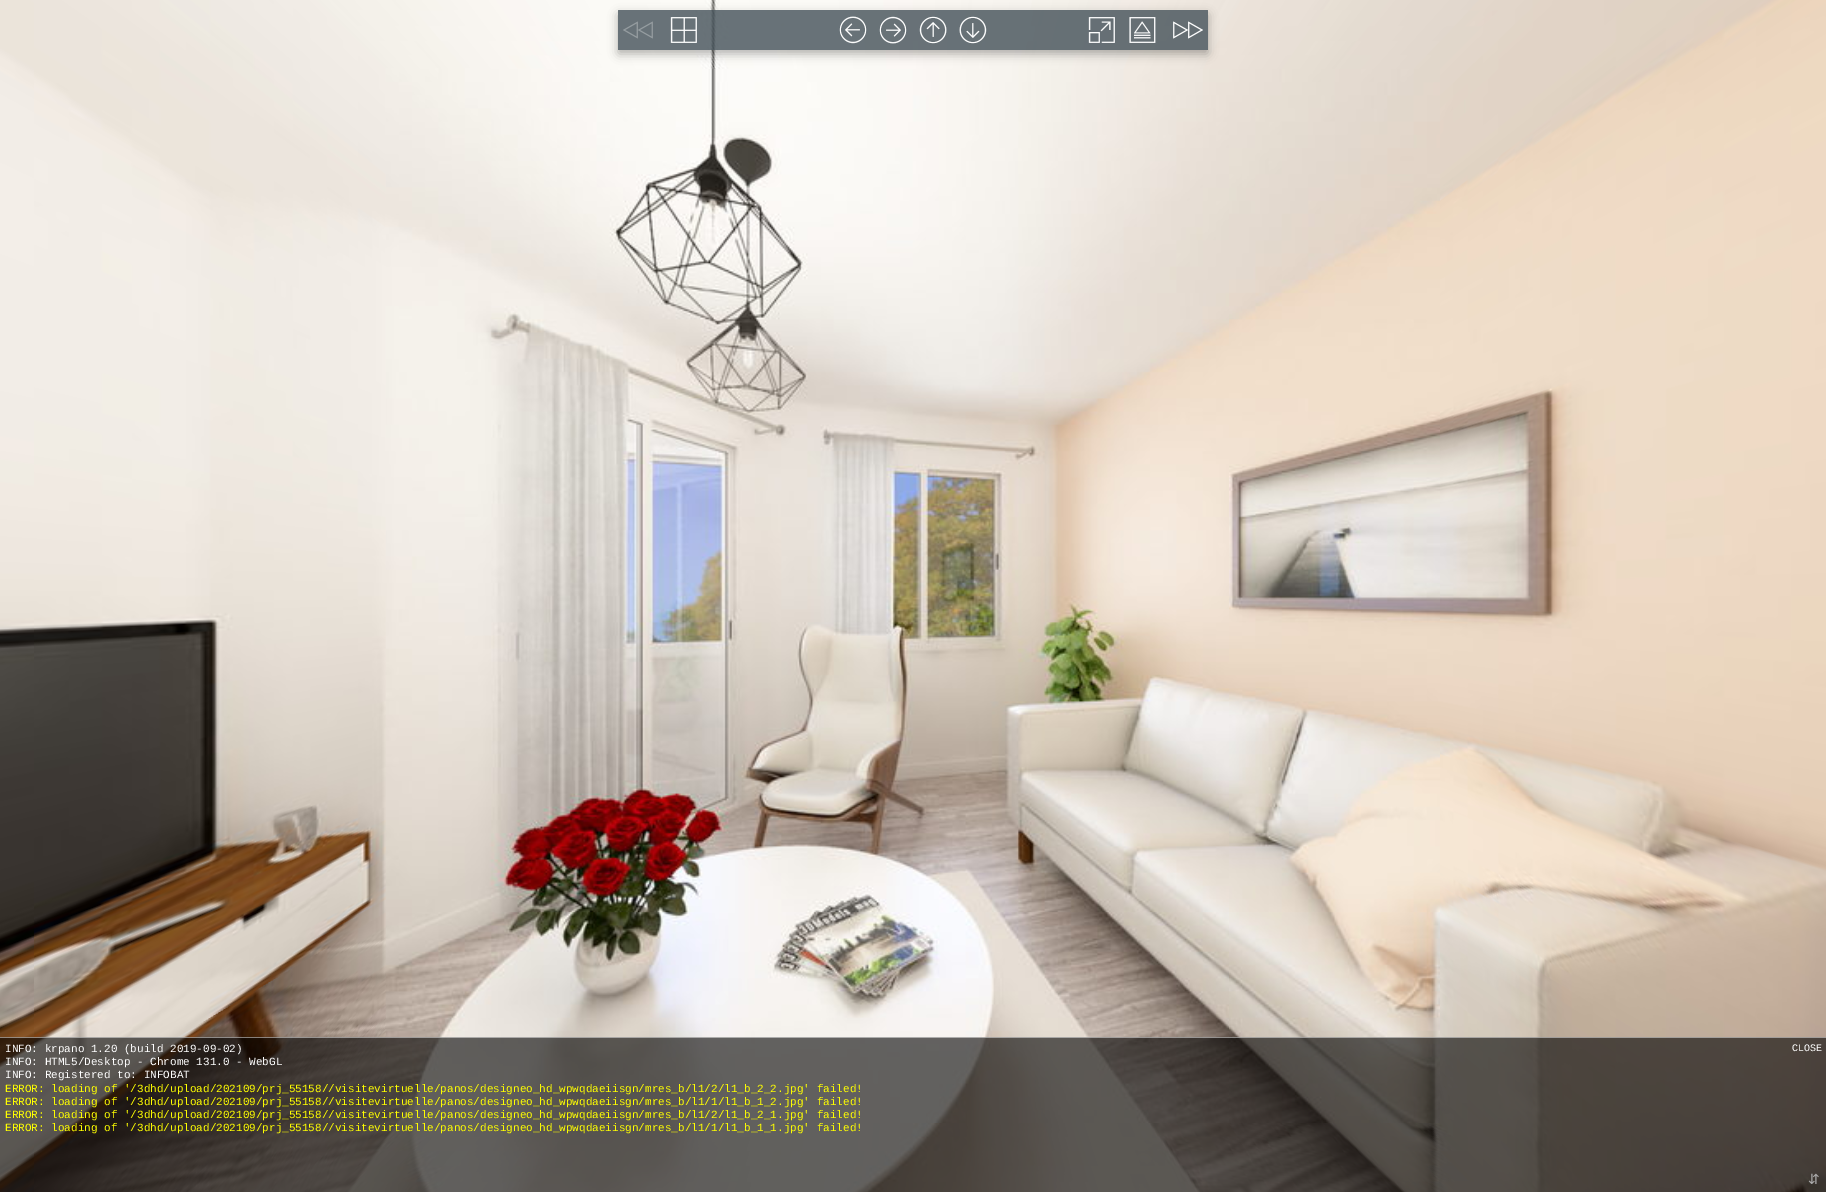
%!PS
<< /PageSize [1826 1192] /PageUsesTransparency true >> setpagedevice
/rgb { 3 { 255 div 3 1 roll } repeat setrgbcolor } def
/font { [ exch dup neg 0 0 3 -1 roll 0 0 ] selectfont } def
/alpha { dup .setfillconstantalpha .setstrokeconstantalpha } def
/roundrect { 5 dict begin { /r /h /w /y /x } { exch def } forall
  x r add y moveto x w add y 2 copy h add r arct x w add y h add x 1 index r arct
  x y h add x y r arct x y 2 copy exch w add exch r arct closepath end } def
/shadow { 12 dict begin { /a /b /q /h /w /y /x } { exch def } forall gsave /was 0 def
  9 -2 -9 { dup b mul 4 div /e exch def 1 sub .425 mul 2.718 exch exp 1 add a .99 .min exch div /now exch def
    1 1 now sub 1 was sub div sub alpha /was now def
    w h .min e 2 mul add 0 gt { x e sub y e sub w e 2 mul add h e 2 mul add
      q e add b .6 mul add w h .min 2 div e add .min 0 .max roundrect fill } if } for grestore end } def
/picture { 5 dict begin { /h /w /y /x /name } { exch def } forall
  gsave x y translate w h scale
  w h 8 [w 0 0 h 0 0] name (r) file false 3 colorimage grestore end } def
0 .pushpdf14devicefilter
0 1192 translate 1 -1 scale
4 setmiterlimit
255 255 255 rgb
0 0 1826 1192 rectfill
(img/1.rgb) 0 0 1826 1192 picture
gsave
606 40 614 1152 rectclip
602 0 moveto 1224 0 lineto 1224 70 lineto 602 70 lineto closepath 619 -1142 moveto 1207 -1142 lineto 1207.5 -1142 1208 -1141.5 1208 -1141 curveto 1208 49 lineto 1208 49.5 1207.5 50 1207 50 curveto 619 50 lineto 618.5 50 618 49.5 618 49 curveto 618 -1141 lineto 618 -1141.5 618.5 -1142 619 -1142 curveto closepath eoclip newpath
0 0 0 rgb
618 -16 590 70 1 5 0.3 shadow
grestore
0.8 alpha
67 80 88 rgb
618 40 moveto 1208 40 lineto 1208 49 lineto 1208 49.5 1207.5 50 1207 50 curveto 619 50 lineto 618.5 50 618 49.5 618 49 curveto closepath fill
gsave
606 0 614 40 rectclip
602 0 moveto 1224 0 lineto 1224 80 lineto 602 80 lineto closepath 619 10 moveto 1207 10 lineto 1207.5 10 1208 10.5 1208 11 curveto 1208 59 lineto 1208 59.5 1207.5 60 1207 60 curveto 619 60 lineto 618.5 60 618 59.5 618 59 curveto 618 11 lineto 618 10.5 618.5 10 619 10 curveto closepath eoclip newpath
1 alpha
0 0 0 rgb
618 14 590 50 1 5 0.3 shadow
grestore
619 10 moveto 1207 10 lineto 1207.5 10 1208 10.5 1208 11 curveto 1208 40 lineto 618 40 lineto 618 11 lineto 618 10.5 618.5 10 619 10 curveto closepath fill
1 alpha
(img/2.rgb) 623 21 30 18 picture
(img/3.rgb) 670 17 27 26 picture
(img/4.rgb) 839 16 28 28 picture
(img/5.rgb) 879 16 28 28 picture
(img/6.rgb) 919 16 28 28 picture
(img/7.rgb) 959 16 28 28 picture
(img/8.rgb) 1088 17 27 26 picture
(img/9.rgb) 1129 17 27 26 picture
(img/10.rgb) 1173 21 30 18 picture
0.6 alpha
0 0 0 rgb
0 1037 1826 155 rectfill
0.48 alpha
255 255 255 rgb
0 1037 1826 1 rectfill
/LiberationMono-Regular 11 font
1 alpha
[
  [(INFO: krpano 1.20 \(build 2019-09-02\)) 5 1052]
  [(INFO: HTML5/Desktop - Chrome 131.0 - WebGL) 5 1065]
  [(INFO: Registered to: INFOBAT) 5 1078]
] { aload pop moveto show } forall
255 255 0 rgb
[
  [(ERROR: loading of '/3dhd/upload/202109/prj_55158//visitevirtuelle/panos/designeo_hd_wpwqdaeiisgn/mres_b/l1/2/l1_b_2_2.jpg' failed!) 5 1092]
  [(ERROR: loading of '/3dhd/upload/202109/prj_55158//visitevirtuelle/panos/designeo_hd_wpwqdaeiisgn/mres_b/l1/1/l1_b_1_2.jpg' failed!) 5 1105]
  [(ERROR: loading of '/3dhd/upload/202109/prj_55158//visitevirtuelle/panos/designeo_hd_wpwqdaeiisgn/mres_b/l1/2/l1_b_2_1.jpg' failed!) 5 1118]
  [(ERROR: loading of '/3dhd/upload/202109/prj_55158//visitevirtuelle/panos/designeo_hd_wpwqdaeiisgn/mres_b/l1/1/l1_b_1_1.jpg' failed!) 5 1131]
] { aload pop moveto show } forall
/LiberationMono-Regular 10 font
255 255 255 rgb
1792 1051 moveto (CLOSE) show
/DejaVuSans-Regular 14 font
170 170 170 rgb
1808 1184 moveto (⇵) show
.poppdf14devicefilter showpage
